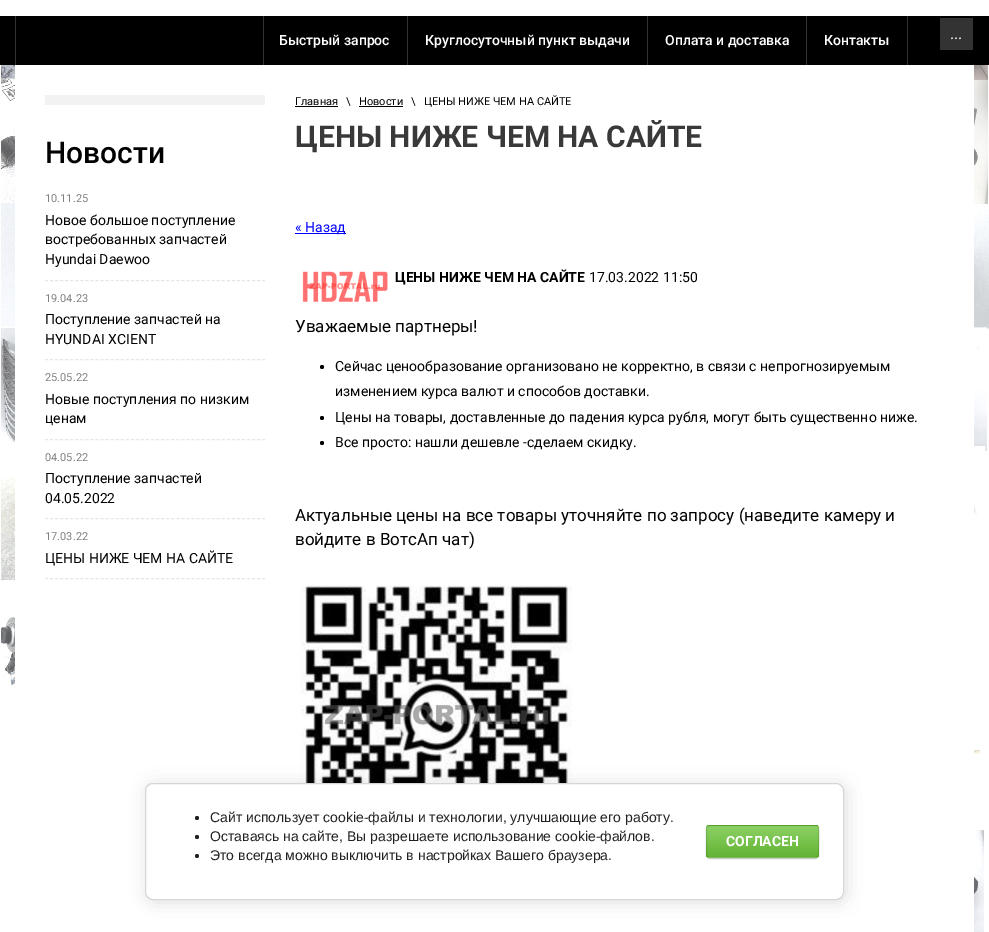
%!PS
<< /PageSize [989 932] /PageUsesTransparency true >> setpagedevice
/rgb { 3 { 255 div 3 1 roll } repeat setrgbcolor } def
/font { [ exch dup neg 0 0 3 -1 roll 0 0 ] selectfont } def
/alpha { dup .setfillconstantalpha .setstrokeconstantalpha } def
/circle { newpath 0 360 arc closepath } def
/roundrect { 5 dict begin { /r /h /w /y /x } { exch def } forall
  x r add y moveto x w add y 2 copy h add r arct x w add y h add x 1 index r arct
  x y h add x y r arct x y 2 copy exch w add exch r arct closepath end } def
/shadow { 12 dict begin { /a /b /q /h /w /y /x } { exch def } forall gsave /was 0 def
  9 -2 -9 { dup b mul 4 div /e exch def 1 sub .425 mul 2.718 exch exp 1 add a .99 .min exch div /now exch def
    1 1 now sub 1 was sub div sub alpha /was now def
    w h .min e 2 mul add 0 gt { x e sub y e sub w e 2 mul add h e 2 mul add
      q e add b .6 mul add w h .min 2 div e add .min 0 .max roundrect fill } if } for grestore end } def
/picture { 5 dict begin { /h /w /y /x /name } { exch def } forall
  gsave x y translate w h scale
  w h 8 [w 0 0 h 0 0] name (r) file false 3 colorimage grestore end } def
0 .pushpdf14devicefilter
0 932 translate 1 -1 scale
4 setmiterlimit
255 255 255 rgb
0 0 989 932 rectfill
(img/1.rgb) 0 65 989 867 picture
[
  [0 16 989 49 0 0 0]
  [263 16 1 49 51 51 51]
  [15 16 1 49 51 51 51]
  [407 16 1 49 51 51 51]
  [647 16 1 49 51 51 51]
  [806 16 1 49 51 51 51]
  [907 16 1 49 51 51 51]
  [940 18 33 32 51 51 51]
  [15 65 959 867 255 255 255]
  [45 95 220 10 242 242 242]
] { aload pop rgb rectfill } forall
230 230 230 rgb
[3 2.05] 0 setdash
45 280.5 moveto 265 280.5 lineto stroke
45 359.5 moveto 265 359.5 lineto stroke
45 439.5 moveto 265 439.5 lineto stroke
45 518.5 moveto 265 518.5 lineto stroke
45 578.5 moveto 265 578.5 lineto stroke
[
  [295 106 43 1 0 0 0]
  [359 106 44 1 0 0 0]
  [295 233 51 1 0 0 255]
] { aload pop rgb rectfill } forall
(img/2.rgb) 302 271 86 31 picture
0 0 0 rgb
322 367 2 circle fill
322 418 2 circle fill
322 443 2 circle fill
(img/3.rgb) 300 585 272 198 picture
147 785 699 117 8 9 0.14 shadow
255 255 255 rgb
145.5 783.5 698 116 7.5 roundrect gsave fill grestore
214 214 214 rgb
[] 0 setdash
stroke
33 33 33 rgb
197 818 2 circle fill
197 837 2 circle fill
197 856 2 circle fill
0 0 0 rgb
706 826 113 33 4 0.5 0.2 shadow
gsave
706 825 113 33 4 roundrect clip newpath
gsave 706 825 moveto 819 825 lineto 819 826 lineto 706 826 lineto closepath clip newpath
<< /ShadingType 2 /ColorSpace /DeviceRGB /Coords [763 795 763 826] /Extend [true true] /Function << /FunctionType 2 /Domain [0 1] /C0 [0.549 0.82 0.392] /C1 [0.388 0.706 0.208] /N 1 >> >> shfill grestore
gsave 706 826 moveto 819 826 lineto 819 857 lineto 706 857 lineto closepath clip newpath
<< /ShadingType 2 /ColorSpace /DeviceRGB /Coords [763 826 763 857] /Extend [true true] /Function << /FunctionType 2 /Domain [0 1] /C0 [0.549 0.82 0.392] /C1 [0.388 0.706 0.208] /N 1 >> >> shfill grestore
gsave 706 857 moveto 819 857 lineto 819 858 lineto 706 858 lineto closepath clip newpath
<< /ShadingType 2 /ColorSpace /DeviceRGB /Coords [763 857 763 888] /Extend [true true] /Function << /FunctionType 2 /Domain [0 1] /C0 [0.549 0.82 0.392] /C1 [0.388 0.706 0.208] /N 1 >> >> shfill grestore
grestore
0.1 alpha
706.5 825.5 112 32 3.5 roundrect stroke
/Roboto-Medium 14 font
1 alpha
255 255 255 rgb
[
  [(Быстрый запрос) 279 45]
  [(Круглосуточный пункт выдачи) 425 45]
  [(Оплата и доставка) 665 45]
  [(Контакты) 824 45]
] { aload pop moveto show } forall
/Roboto-Regular 16 font
950 39 moveto (...) show
/Roboto-Medium 30 font
0 0 0 rgb
45 163 moveto (Новости) show
/Roboto-Regular 11 font
128 128 128 rgb
45 202 moveto (10.11.25) show
/Roboto-Regular 14 font
0 0 0 rgb
[
  [(Новое большое поступление) 45 225]
  [(востребованных запчастей) 45 244]
  [(Hyundai Daewoo) 45 264]
] { aload pop moveto show } forall
/Roboto-Regular 11 font
128 128 128 rgb
45 302 moveto (19.04.23) show
/Roboto-Regular 14 font
0 0 0 rgb
45 324 moveto (Поступление запчастей на) show
45 344 moveto (HYUNDAI XCIENT) show
/Roboto-Regular 11 font
128 128 128 rgb
45 381 moveto (25.05.22) show
/Roboto-Regular 14 font
0 0 0 rgb
45 404 moveto (Новые поступления по низким) show
45 423 moveto (ценам) show
/Roboto-Regular 11 font
128 128 128 rgb
45 461 moveto (04.05.22) show
/Roboto-Regular 14 font
0 0 0 rgb
45 483 moveto (Поступление запчастей) show
45 503 moveto (04.05.2022) show
/Roboto-Regular 11 font
128 128 128 rgb
45 540 moveto (17.03.22) show
/Roboto-Regular 14 font
0 0 0 rgb
45 563 moveto (ЦЕНЫ НИЖЕ ЧЕМ НА САЙТЕ) show
/Roboto-Regular 11 font
[
  [(Главная) 295 105]
  [(\\) 346 105]
  [(Новости) 359 105]
  [(\\   ЦЕНЫ НИЖЕ ЧЕМ НА САЙТЕ) 411 105]
] { aload pop moveto show } forall
/Roboto-Bold 30 font
57 57 57 rgb
295 147 moveto (ЦЕНЫ НИЖЕ ЧЕМ НА САЙТЕ) show
/Roboto-Regular 14 font
0 0 255 rgb
295 232 moveto (« Назад) show
/Roboto-Bold 14 font
0 0 0 rgb
395 282 moveto (ЦЕНЫ НИЖЕ ЧЕМ НА САЙТЕ) show
/Roboto-Regular 14 font
589 282 moveto (17.03.2022 11:50) show
/Roboto-Regular 17 font
295 332 moveto (Уважаемые партнеры!) show
/Roboto-Regular 14 font
[
  [(Сейчас ценообразование организовано не корректно, в связи с непрогнозируемым) 335 371]
  [(изменением курса валют и способов доставки.) 335 396]
  [(Цены на товары, доставленные до падения курса рубля, могут быть существенно ниже.) 335 422]
  [(Все просто: нашли дешевле -сделаем скидку.) 335 447]
] { aload pop moveto show } forall
/Roboto-Regular 17 font
295 521 moveto (Актуальные цены на все товары уточняйте по запросу \(наведите камеру и) show
295 545 moveto (войдите в ВотсАп чат\)) show
/LiberationSans-Regular 14 font
33 33 33 rgb
[
  [(Сайт использует cookie-файлы и технологии, улучшающие его работу.) 210 822]
  [(Оставаясь на сайте, Вы разрешаете использование cookie-файлов.) 210 841]
  [(Это всегда можно выключить в настройках Вашего браузера.) 210 860]
] { aload pop moveto show } forall
/Roboto-Bold 14 font
255 255 255 rgb
726 846 moveto (СОГЛАСЕН) show
.poppdf14devicefilter showpage
